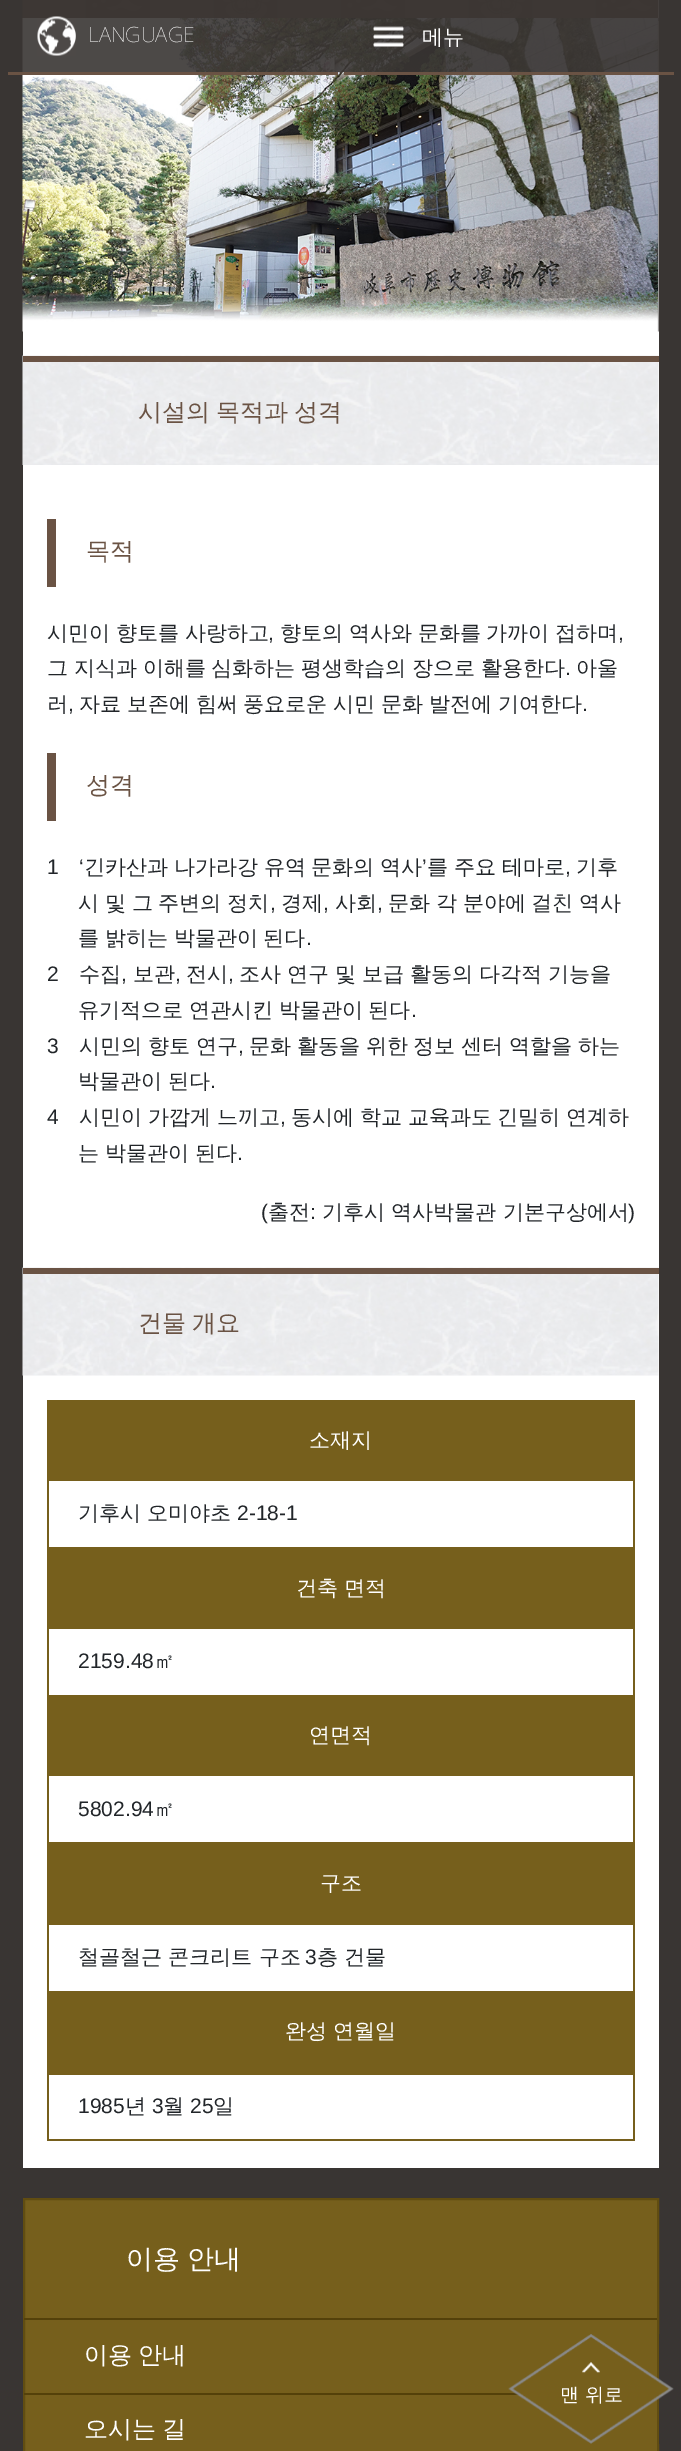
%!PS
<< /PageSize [681 2451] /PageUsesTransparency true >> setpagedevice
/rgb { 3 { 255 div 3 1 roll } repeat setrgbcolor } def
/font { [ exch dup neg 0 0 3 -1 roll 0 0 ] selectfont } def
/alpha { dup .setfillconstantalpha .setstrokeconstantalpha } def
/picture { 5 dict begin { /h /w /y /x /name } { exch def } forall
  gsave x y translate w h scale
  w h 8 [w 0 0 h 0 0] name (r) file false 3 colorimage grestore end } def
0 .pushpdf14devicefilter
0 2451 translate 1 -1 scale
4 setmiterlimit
57 53 51 rgb
0 0 681 2451 rectfill
255 255 255 rgb
23 0 636 2168 rectfill
(img/3.rgb) 22 0 637 21 picture
(img/4.rgb) 22 18 637 314 picture
0.9 alpha
57 53 51 rgb
22 0 637 72 rectfill
1 alpha
(img/1.rgb) 37 16 39 40 picture
106 83 68 rgb
8 72 330 3 rectfill
(img/2.rgb) 373 26 31 21 picture
344 72 330 3 rectfill
(img/5.rgb) 22 355 637 110 picture
[
  [23 356 636 6 106 83 68]
  [47 519 9 68 106 83 68]
  [47 753 9 68 106 83 68]
] { aload pop rgb rectfill } forall
(img/6.rgb) 22 1267 637 109 picture
[
  [23 1268 636 6 106 83 68]
  [47 1400 588 81 118 95 28]
  [633 1481 2 67 118 95 28]
  [47 1547 588 82 118 95 28]
  [47 1481 2 67 118 95 28]
  [633 1629 2 68 118 95 28]
  [47 1695 588 81 118 95 28]
  [47 1629 2 68 118 95 28]
  [633 1776 2 68 118 95 28]
  [47 1842 588 83 118 95 28]
  [47 1776 2 68 118 95 28]
  [633 1925 2 67 118 95 28]
  [47 1991 588 84 118 95 28]
  [47 1925 2 67 118 95 28]
  [633 2075 2 66 118 95 28]
  [47 2139 588 2 118 95 28]
  [47 2075 2 66 118 95 28]
] { aload pop rgb rectfill } forall
24 2199 moveto 658 2199 lineto 658 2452 lineto 24 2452 lineto closepath gsave fill grestore
97 77 17 rgb
2 setlinewidth
stroke
84 65 10 rgb
24 2318 633 2 rectfill
24 2393 495 2 rectfill
(img/7.rgb) 508 2334 166 110 picture
/NotoSans-Thin 21 font
255 255 255 rgb
88 42 moveto (LANGUAGE) show
/WenQuanYiZenHei-Medium 21 font
422 44 moveto (메뉴) show
/WenQuanYiZenHei-Medium 24 font
106 83 68 rgb
138 420 moveto -1 0 32 (시설의 목적과 성격) widthshow
86 559 moveto (목적) show
/WenQuanYiZenHei-Medium 21 font
33 37 41 rgb
47 640 moveto -0.5 0 32 (시민이 향토를 사랑하고) widthshow
/LiberationSans-Regular 21 font
268 640 moveto (,) show
/WenQuanYiZenHei-Medium 21 font
280 640 moveto -0.5 0 32 (향토의 역사와 문화를 가까이 접하며) widthshow
/LiberationSans-Regular 21 font
618 640 moveto (,) show
/WenQuanYiZenHei-Medium 21 font
47 675 moveto -0.5 0 32 (그 지식과 이해를 심화하는 평생학습의 장으로 활용한다) widthshow
/LiberationSans-Regular 21 font
565 675 moveto (.) show
/WenQuanYiZenHei-Medium 21 font
576 675 moveto (아울) show
47 711 moveto (러) show
/LiberationSans-Regular 21 font
68 711 moveto (,) show
/WenQuanYiZenHei-Medium 21 font
79 711 moveto -0.5 0 32 (자료 보존에 힘써 풍요로운 시민 문화 발전에 기여한다) widthshow
/LiberationSans-Regular 21 font
582 711 moveto (.) show
/WenQuanYiZenHei-Medium 24 font
106 83 68 rgb
86 793 moveto (성격) show
/LiberationSans-Regular 21 font
33 37 41 rgb
47 874 moveto (1) show
79 874 moveto (‘) show
/WenQuanYiZenHei-Medium 21 font
84 874 moveto -0.5 0 32 (긴카산과 나가라강 유역 문화의 역사) widthshow
/LiberationSans-Regular 21 font
422 874 moveto (’) show
/WenQuanYiZenHei-Medium 21 font
427 874 moveto -0.5 0 32 (를 주요 테마로) widthshow
576 874 moveto (기후) show
/LiberationSans-Regular 21 font
565 874 moveto (,) show
/WenQuanYiZenHei-Medium 21 font
78 910 moveto -0.5 0 32 (시 및 그 주변의 정치) widthshow
/LiberationSans-Regular 21 font
270 910 moveto (,) show
/WenQuanYiZenHei-Medium 21 font
281 910 moveto (경제) show
/LiberationSans-Regular 21 font
323 910 moveto (,) show
/WenQuanYiZenHei-Medium 21 font
335 910 moveto (사회) show
/LiberationSans-Regular 21 font
377 910 moveto (,) show
/WenQuanYiZenHei-Medium 21 font
388 910 moveto -0.5 0 32 (문화 각 분야에 걸친 역사) widthshow
78 945 moveto -0.5 0 32 (를 밝히는 박물관이 된다) widthshow
/LiberationSans-Regular 21 font
306 945 moveto (.) show
47 981 moveto (2) show
/WenQuanYiZenHei-Medium 21 font
79 981 moveto (수집) show
/LiberationSans-Regular 21 font
121 981 moveto (,) show
/WenQuanYiZenHei-Medium 21 font
133 981 moveto (보관) show
/LiberationSans-Regular 21 font
175 981 moveto (,) show
/WenQuanYiZenHei-Medium 21 font
186 981 moveto (전시) show
/LiberationSans-Regular 21 font
228 981 moveto (,) show
/WenQuanYiZenHei-Medium 21 font
239 981 moveto -0.25 0 32 (조사 연구 및 보급 활동의 다각적 기능을) widthshow
78 1017 moveto -0.5 0 32 (유기적으로 연관시킨 박물관이 된다) widthshow
/LiberationSans-Regular 21 font
411 1017 moveto (.) show
47 1053 moveto (3) show
/WenQuanYiZenHei-Medium 21 font
79 1053 moveto -0.5 0 32 (시민의 향토 연구) widthshow
/LiberationSans-Regular 21 font
238 1053 moveto (,) show
/WenQuanYiZenHei-Medium 21 font
249 1053 moveto -0.5 0 32 (문화 활동을 위한 정보 센터 역할을 하는) widthshow
78 1088 moveto -0.5 0 32 (박물관이 된다) widthshow
/LiberationSans-Regular 21 font
210 1088 moveto (.) show
47 1124 moveto (4) show
/WenQuanYiZenHei-Medium 21 font
79 1124 moveto -0.5 0 32 (시민이 가깝게 느끼고) widthshow
/LiberationSans-Regular 21 font
280 1124 moveto (,) show
/WenQuanYiZenHei-Medium 21 font
291 1124 moveto -0.5 0 32 (동시에 학교 교육과도 긴밀히 연계하) widthshow
78 1160 moveto -0.5 0 32 (는 박물관이 된다) widthshow
/LiberationSans-Regular 21 font
237 1160 moveto (.) show
261 1219 moveto (\() show
/WenQuanYiZenHei-Medium 21 font
268 1219 moveto (출전) show
/LiberationSans-Regular 21 font
310 1219 moveto (:) show
/WenQuanYiZenHei-Medium 21 font
322 1219 moveto (기후시 역사박물관 기본구상에서) show
/LiberationSans-Regular 21 font
628 1219 moveto (\)) show
/WenQuanYiZenHei-Medium 24 font
106 83 68 rgb
138 1331 moveto -1 0 32 (건물 개요) widthshow
/WenQuanYiZenHei-Medium 21 font
255 255 255 rgb
309 1447 moveto (소재지) show
33 37 41 rgb
78 1520 moveto (기후시 오미야초) show
/LiberationSans-Regular 21 font
237 1520 moveto (2-18-1) show
/WenQuanYiZenHei-Medium 21 font
255 255 255 rgb
296 1595 moveto -0.5 0 32 (건축 면적) widthshow
/LiberationSans-Regular 21 font
33 37 41 rgb
78 1668 moveto (2159.48) show
/WenQuanYiZenHei-Medium 21 font
154 1668 moveto (㎡) show
255 255 255 rgb
309 1742 moveto (연면적) show
/LiberationSans-Regular 21 font
33 37 41 rgb
78 1816 moveto (5802.94) show
/WenQuanYiZenHei-Medium 21 font
154 1816 moveto (㎡) show
255 255 255 rgb
320 1890 moveto (구조) show
33 37 41 rgb
78 1964 moveto (철골철근 콘크리트 구조) show
/LiberationSans-Regular 21 font
305 1964 moveto (3) show
/WenQuanYiZenHei-Medium 21 font
317 1964 moveto (층 건물) show
255 255 255 rgb
285 2038 moveto -0.5 0 32 (완성 연월일) widthshow
/LiberationSans-Regular 21 font
33 37 41 rgb
78 2113 moveto (1985) show
/WenQuanYiZenHei-Medium 21 font
125 2113 moveto (년) show
/LiberationSans-Regular 21 font
152 2113 moveto (3) show
/WenQuanYiZenHei-Medium 21 font
163 2113 moveto (월) show
/LiberationSans-Regular 21 font
190 2113 moveto (25) show
/WenQuanYiZenHei-Medium 21 font
213 2113 moveto (일) show
/WenQuanYiZenHei-Medium 27 font
255 255 255 rgb
126 2268 moveto -1 0 32 (이용 안내) widthshow
/WenQuanYiZenHei-Medium 24 font
84 2363 moveto -1 0 32 (이용 안내) widthshow
84 2437 moveto -1 0 32 (오시는 길) widthshow
/WenQuanYiZenHei-Medium 19 font
560 2401 moveto (맨 위로) show
.poppdf14devicefilter showpage
